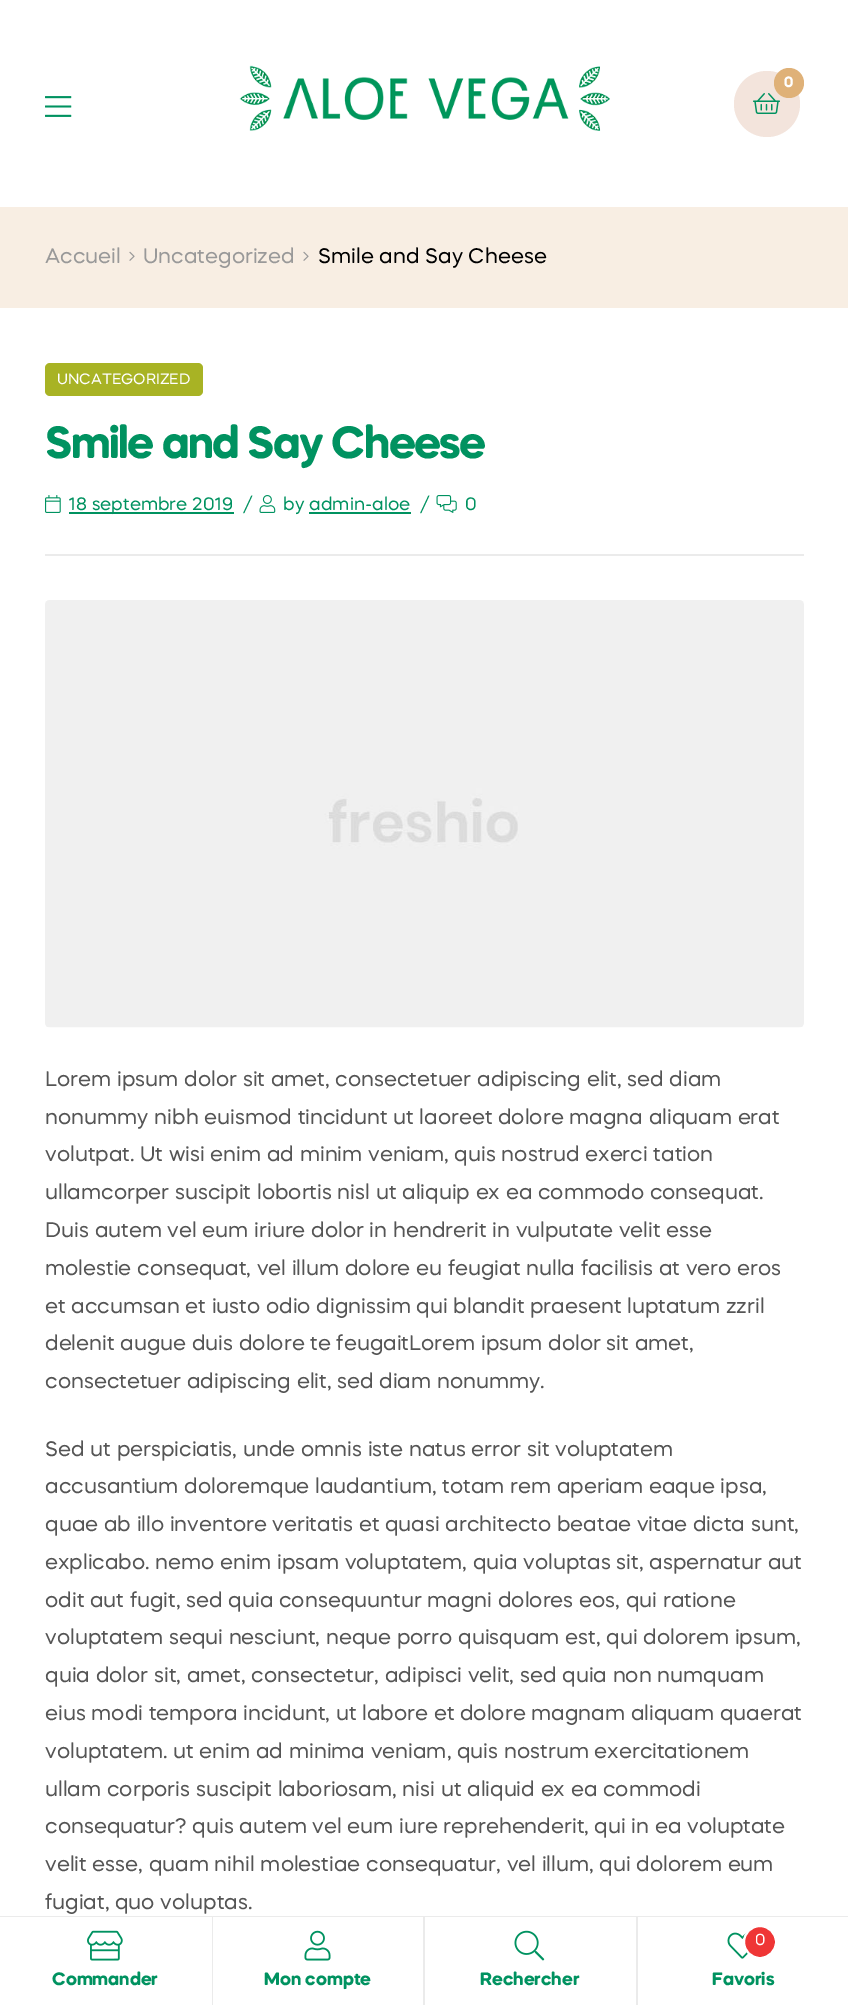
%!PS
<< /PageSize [848 2005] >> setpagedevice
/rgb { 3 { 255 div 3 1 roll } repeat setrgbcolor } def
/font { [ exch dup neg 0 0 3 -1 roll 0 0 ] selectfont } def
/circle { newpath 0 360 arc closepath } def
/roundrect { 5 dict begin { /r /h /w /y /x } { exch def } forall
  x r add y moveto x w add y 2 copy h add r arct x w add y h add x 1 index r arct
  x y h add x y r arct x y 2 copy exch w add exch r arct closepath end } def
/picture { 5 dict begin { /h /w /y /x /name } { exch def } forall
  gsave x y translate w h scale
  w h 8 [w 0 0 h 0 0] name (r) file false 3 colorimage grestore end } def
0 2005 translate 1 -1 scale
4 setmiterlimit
255 255 255 rgb
0 0 848 2005 rectfill
(img/1.rgb) 239 65 371 66 picture
243 228 220 rgb
767 104 33 circle fill
(img/2.rgb) 753 93 27 21 picture
223 177 120 rgb
789 83 15 circle fill
(img/3.rgb) 45 96 27 21 picture
248 238 227 rgb
0 207 848 101 rectfill
(img/4.rgb) 129 251 6 10 picture
(img/4.rgb) 303 251 6 10 picture
168 179 36 rgb
45 363 158 33 5 roundrect fill
235 235 235 rgb
45 554 759 2 rectfill
(img/5.rgb) 45 495 16 18 picture
0 146 96 rgb
69 512 165 2 rectfill
(img/6.rgb) 259 495 17 18 picture
309 512 102 2 rectfill
(img/7.rgb) 436 495 21 18 picture
(img/8.rgb) 45 600 759 428 picture
235 235 235 rgb
0 1916 848 1 rectfill
212 1917 1 88 rectfill
(img/9.rgb) 87 1930 36 31 picture
423 1917 2 88 rectfill
(img/10.rgb) 304 1930 27 31 picture
636 1917 2 88 rectfill
(img/11.rgb) 514 1930 31 31 picture
(img/12.rgb) 727 1932 21 27 picture
239 54 54 rgb
760 1942 16 circle gsave fill grestore
255 255 255 rgb
2 setlinewidth
stroke
/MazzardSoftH-Bold 15 font
784 87 moveto (0) show
/MazzardSoftH-Regular 21 font
153 153 153 rgb
45 263 moveto (Accueil) show
143 263 moveto (Uncategorized) show
0 0 0 rgb
318 263 moveto (Smile and Say Cheese) show
/MazzardSoftH-Regular 15 font
255 255 255 rgb
57 384 moveto (UNCATEGORIZED) show
/MazzardSoftH-Bold 45 font
0 146 96 rgb
45 458 moveto -1.5 0 (Smile and Say Cheese) ashow
/MazzardSoftH-Regular 18 font
[
  [(18 septembre 2019) 68 510]
  [(/) 243 510]
  [(by admin-aloe) 283 510]
  [(/) 420 510]
  [(0) 465 510]
] { aload pop moveto show } forall
/MazzardSoftH-Regular 21 font
85 85 85 rgb
[
  [(Lorem ipsum dolor sit amet, consectetuer adipiscing elit, sed diam) 45 1086]
  [(nonummy nibh euismod tincidunt ut laoreet dolore magna aliquam erat) 45 1124]
  [(volutpat. Ut wisi enim ad minim veniam, quis nostrud exerci tation) 45 1161]
  [(ullamcorper suscipit lobortis nisl ut aliquip ex ea commodo consequat.) 45 1199]
  [(Duis autem vel eum iriure dolor in hendrerit in vulputate velit esse) 45 1237]
  [(molestie consequat, vel illum dolore eu feugiat nulla facilisis at vero eros) 45 1275]
  [(et accumsan et iusto odio dignissim qui blandit praesent luptatum zzril) 45 1313]
  [(delenit augue duis dolore te feugaitLorem ipsum dolor sit amet,) 45 1350]
  [(consectetuer adipiscing elit, sed diam nonummy.) 45 1388]
  [(Sed ut perspiciatis, unde omnis iste natus error sit voluptatem) 45 1456]
  [(accusantium doloremque laudantium, totam rem aperiam eaque ipsa,) 45 1493]
  [(quae ab illo inventore veritatis et quasi architecto beatae vitae dicta sunt,) 45 1531]
  [(explicabo. nemo enim ipsam voluptatem, quia voluptas sit, aspernatur aut) 45 1569]
  [(odit aut fugit, sed quia consequuntur magni dolores eos, qui ratione) 45 1607]
  [(voluptatem sequi nesciunt, neque porro quisquam est, qui dolorem ipsum,) 45 1644]
  [(quia dolor sit, amet, consectetur, adipisci velit, sed quia non numquam) 45 1682]
  [(eius modi tempora incidunt, ut labore et dolore magnam aliquam quaerat) 45 1720]
  [(voluptatem. ut enim ad minima veniam, quis nostrum exercitationem) 45 1758]
  [(ullam corporis suscipit laboriosam, nisi ut aliquid ex ea commodi) 45 1796]
  [(consequatur? quis autem vel eum iure reprehenderit, qui in ea voluptate) 45 1833]
  [(velit esse, quam nihil molestiae consequatur, vel illum, qui dolorem eum) 45 1871]
  [(fugiat, quo voluptas.) 45 1909]
] { aload pop moveto show } forall
/MazzardSoftH-Bold 18 font
0 146 96 rgb
[
  [(Commander) 52 1985]
  [(Mon compte) 264 1985]
  [(Rechercher) 480 1985]
] { aload pop moveto show } forall
/MazzardSoftH-Regular 16 font
255 255 255 rgb
755 1945 moveto (0) show
/MazzardSoftH-Bold 18 font
0 146 96 rgb
712 1985 moveto (Favoris) show
showpage
